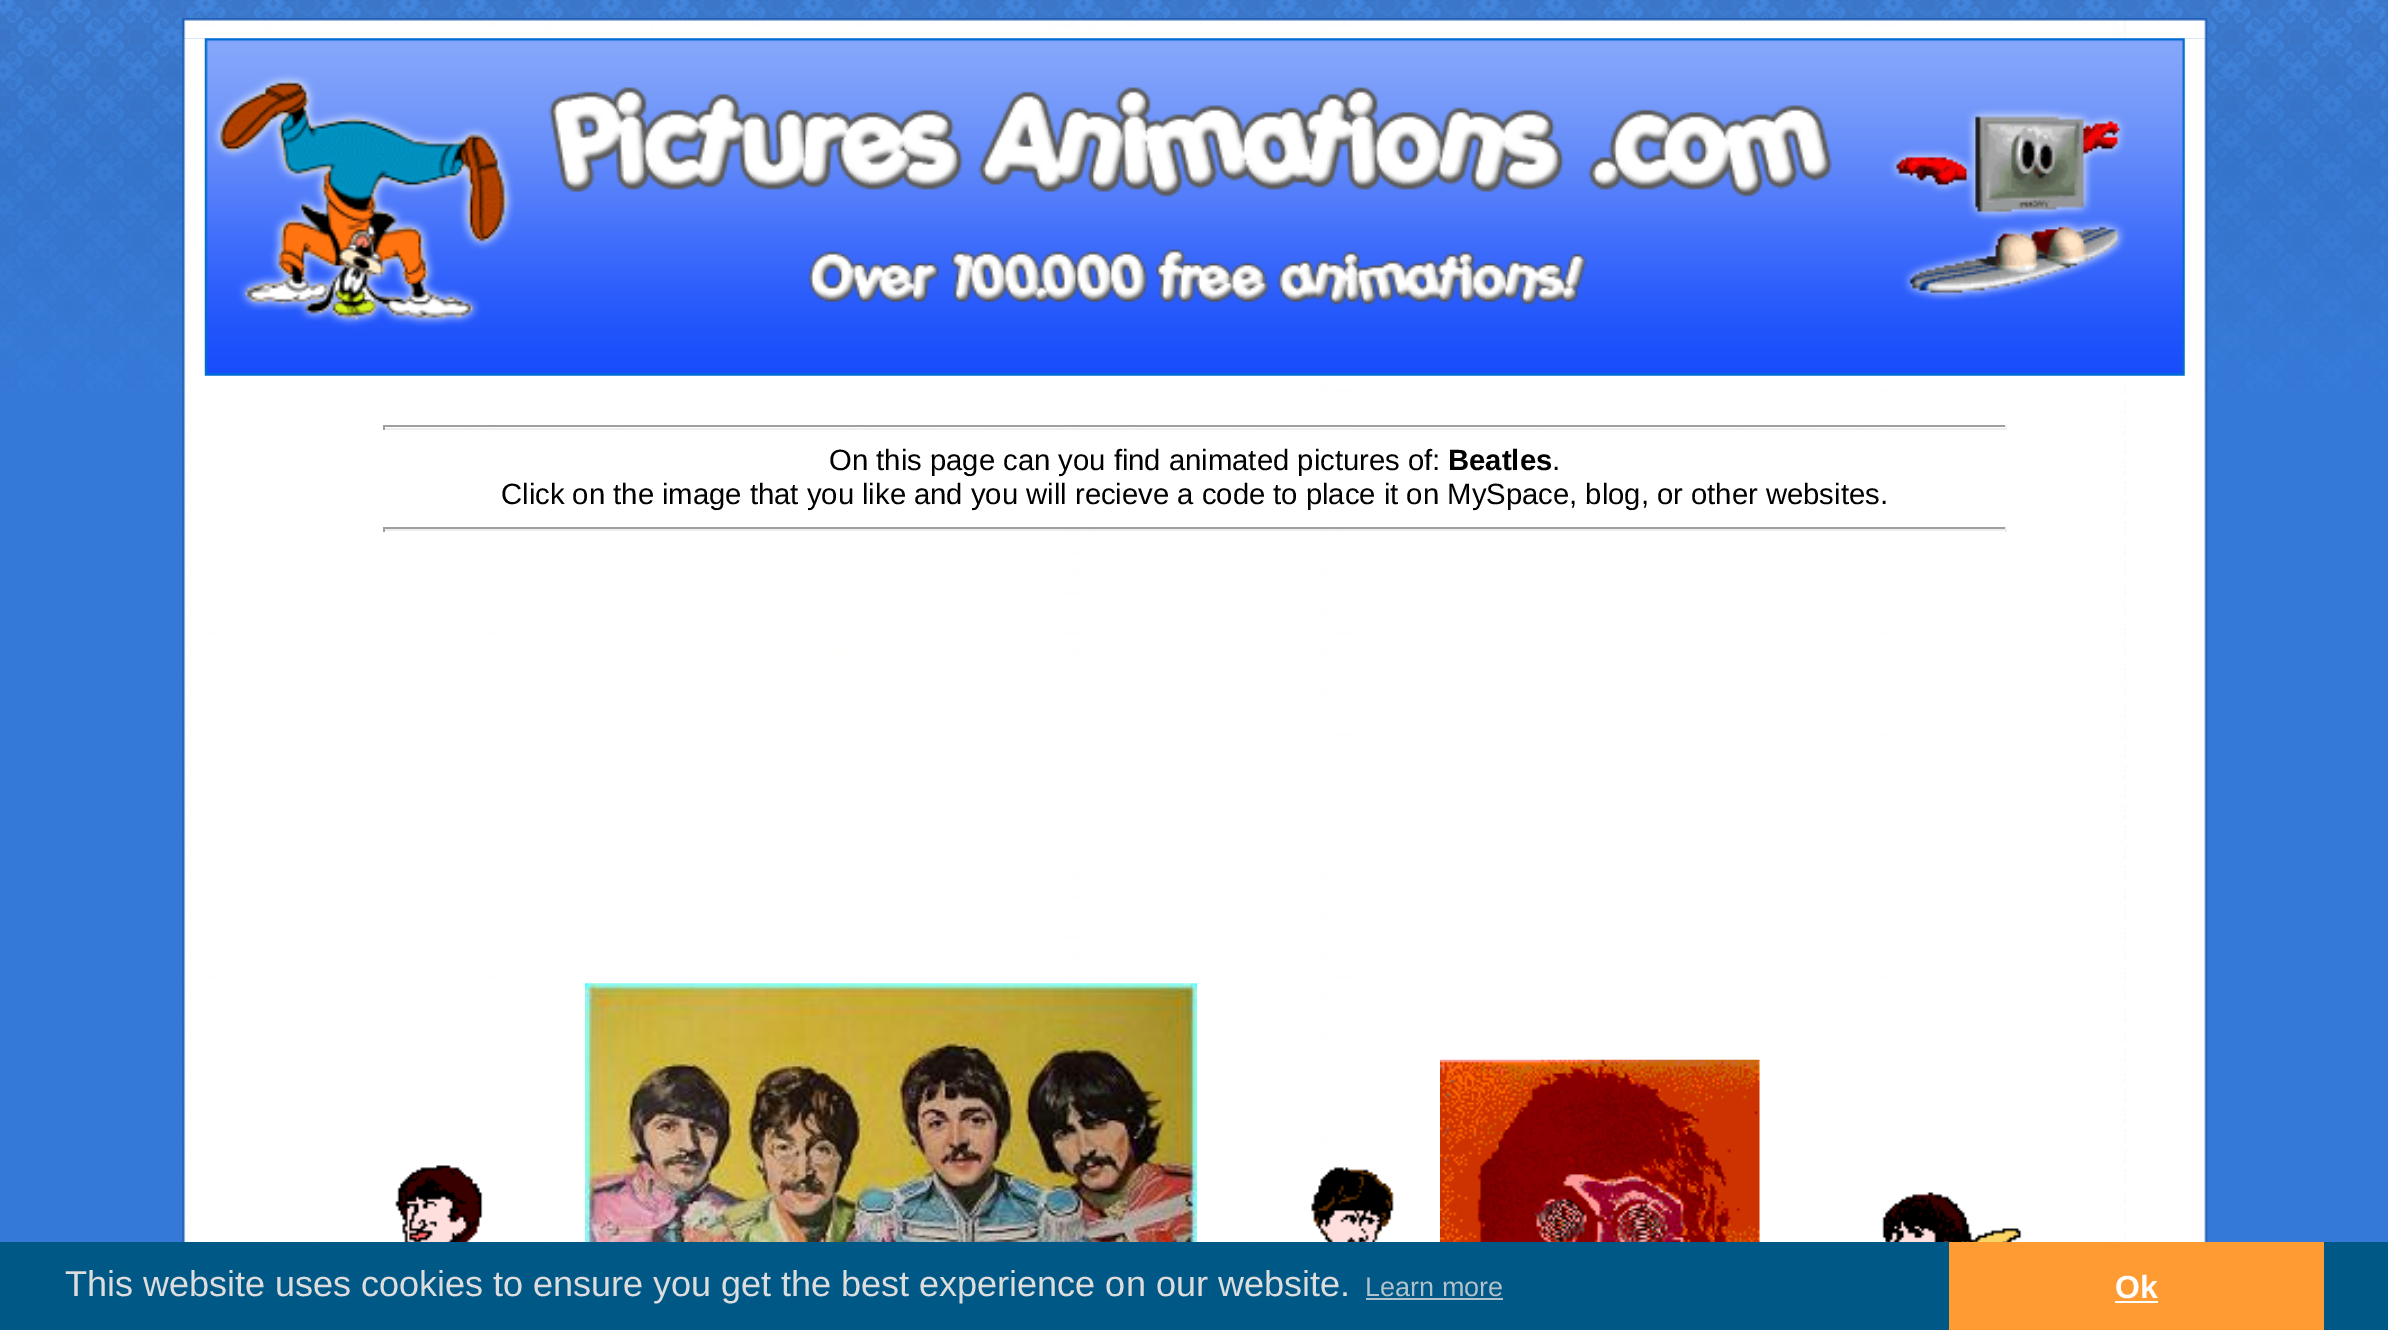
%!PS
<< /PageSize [2388 1330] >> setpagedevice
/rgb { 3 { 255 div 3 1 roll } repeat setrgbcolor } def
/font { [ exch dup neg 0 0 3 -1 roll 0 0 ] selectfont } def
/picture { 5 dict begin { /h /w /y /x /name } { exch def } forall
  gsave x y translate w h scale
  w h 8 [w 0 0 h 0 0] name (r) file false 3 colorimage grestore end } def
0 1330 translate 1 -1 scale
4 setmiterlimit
52 121 216 rgb
0 0 2388 1330 rectfill
(img/1.rgb) 0 0 2388 393 picture
(img/2.rgb) 182 18 2026 21 picture
(img/3.rgb) 182 38 2026 1204 picture
(img/4.rgb) 204 38 1981 338 picture
[
  [383 425 1624 2 159 159 159]
  [2005 425 2 5 238 238 238]
  [383 428 1624 2 238 238 238]
  [383 425 2 5 159 159 159]
  [383 527 1624 2 159 159 159]
  [2005 527 2 5 238 238 238]
  [383 529 1624 2 238 238 238]
  [383 527 2 5 159 159 159]
] { aload pop rgb rectfill } forall
(img/5.rgb) 395 1165 88 77 picture
(img/6.rgb) 585 983 612 259 picture
(img/7.rgb) 1311 1167 83 75 picture
(img/8.rgb) 1440 1059 320 183 picture
(img/9.rgb) 1882 1192 140 50 picture
[
  [0 1242 2388 88 0 88 134]
  [1366 1298 137 2 177 194 204]
  [1949 1242 375 88 255 155 51]
  [2115 1301 43 2 255 255 255]
] { aload pop rgb rectfill } forall
/LiberationSans-Regular 29.25 font
0 0 0 rgb
829 470 moveto (On this page can you find animated pictures of:) show
/LiberationSans-Bold 29.25 font
1448 470 moveto (Beatles) show
/LiberationSans-Regular 29.25 font
1552 470 moveto (.) show
501 504 moveto (Click on the image that you like and you will recieve a code to place it on MySpace, blog, or other websites.) show
/LiberationSans-Regular 36 font
221 221 221 rgb
65 1296 moveto (This website uses cookies to ensure you get the best experience on our website.) show
/LiberationSans-Regular 27 font
177 194 204 rgb
1365 1296 moveto (Learn more) show
/LiberationSans-Bold 32 font
255 255 255 rgb
2115 1298 moveto (Ok) show
showpage
